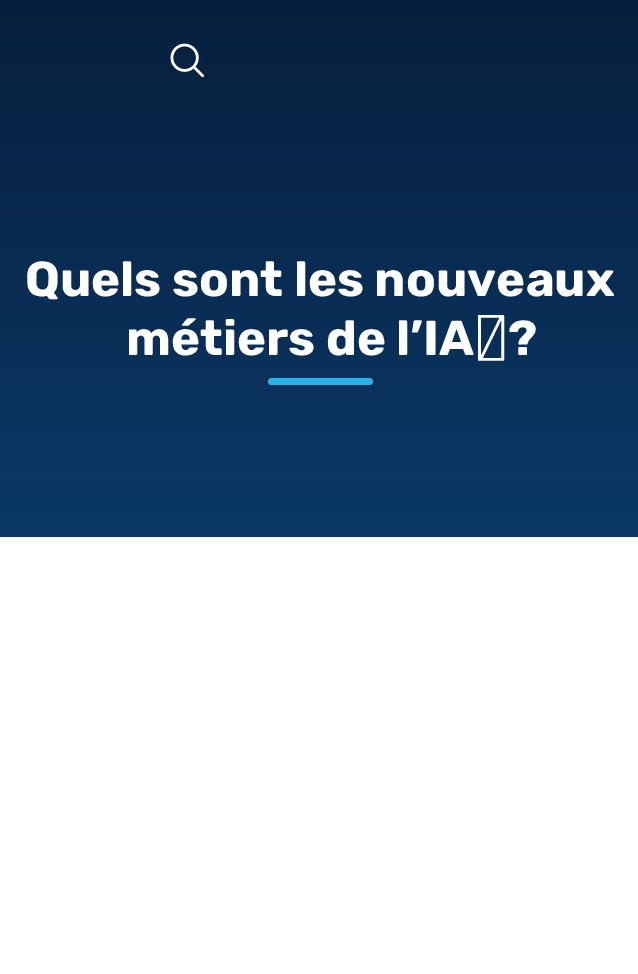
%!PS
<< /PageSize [638 974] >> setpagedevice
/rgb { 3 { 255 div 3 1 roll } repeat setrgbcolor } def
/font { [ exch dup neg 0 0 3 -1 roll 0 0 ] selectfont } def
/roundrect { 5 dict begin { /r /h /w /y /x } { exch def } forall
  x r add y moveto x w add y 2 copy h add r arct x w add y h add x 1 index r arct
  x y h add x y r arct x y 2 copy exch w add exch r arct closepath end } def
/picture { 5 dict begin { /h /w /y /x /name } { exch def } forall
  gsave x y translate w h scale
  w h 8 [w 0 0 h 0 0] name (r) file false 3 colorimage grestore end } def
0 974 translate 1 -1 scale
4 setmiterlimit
255 255 255 rgb
0 0 638 974 rectfill
gsave 0 0 moveto 638 0 lineto 638 537 lineto 0 537 lineto closepath clip newpath
<< /ShadingType 2 /ColorSpace /DeviceRGB /Coords [319 -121 319 537] /Extend [true true] /Function << /FunctionType 2 /Domain [0 1] /C0 [0.027 0.098 0.2] /C1 [0.039 0.224 0.404] /N 1 >> >> shfill grestore
(img/1.rgb) 170 43 34 35 picture
39 175 232 rgb
268 378 105 7 3.5 roundrect fill
/Rubik-Bold 49 font
255 255 255 rgb
25 296 moveto (Quels sont les nouveaux) show
126 355 moveto (métiers de l’IA ?) show
showpage
